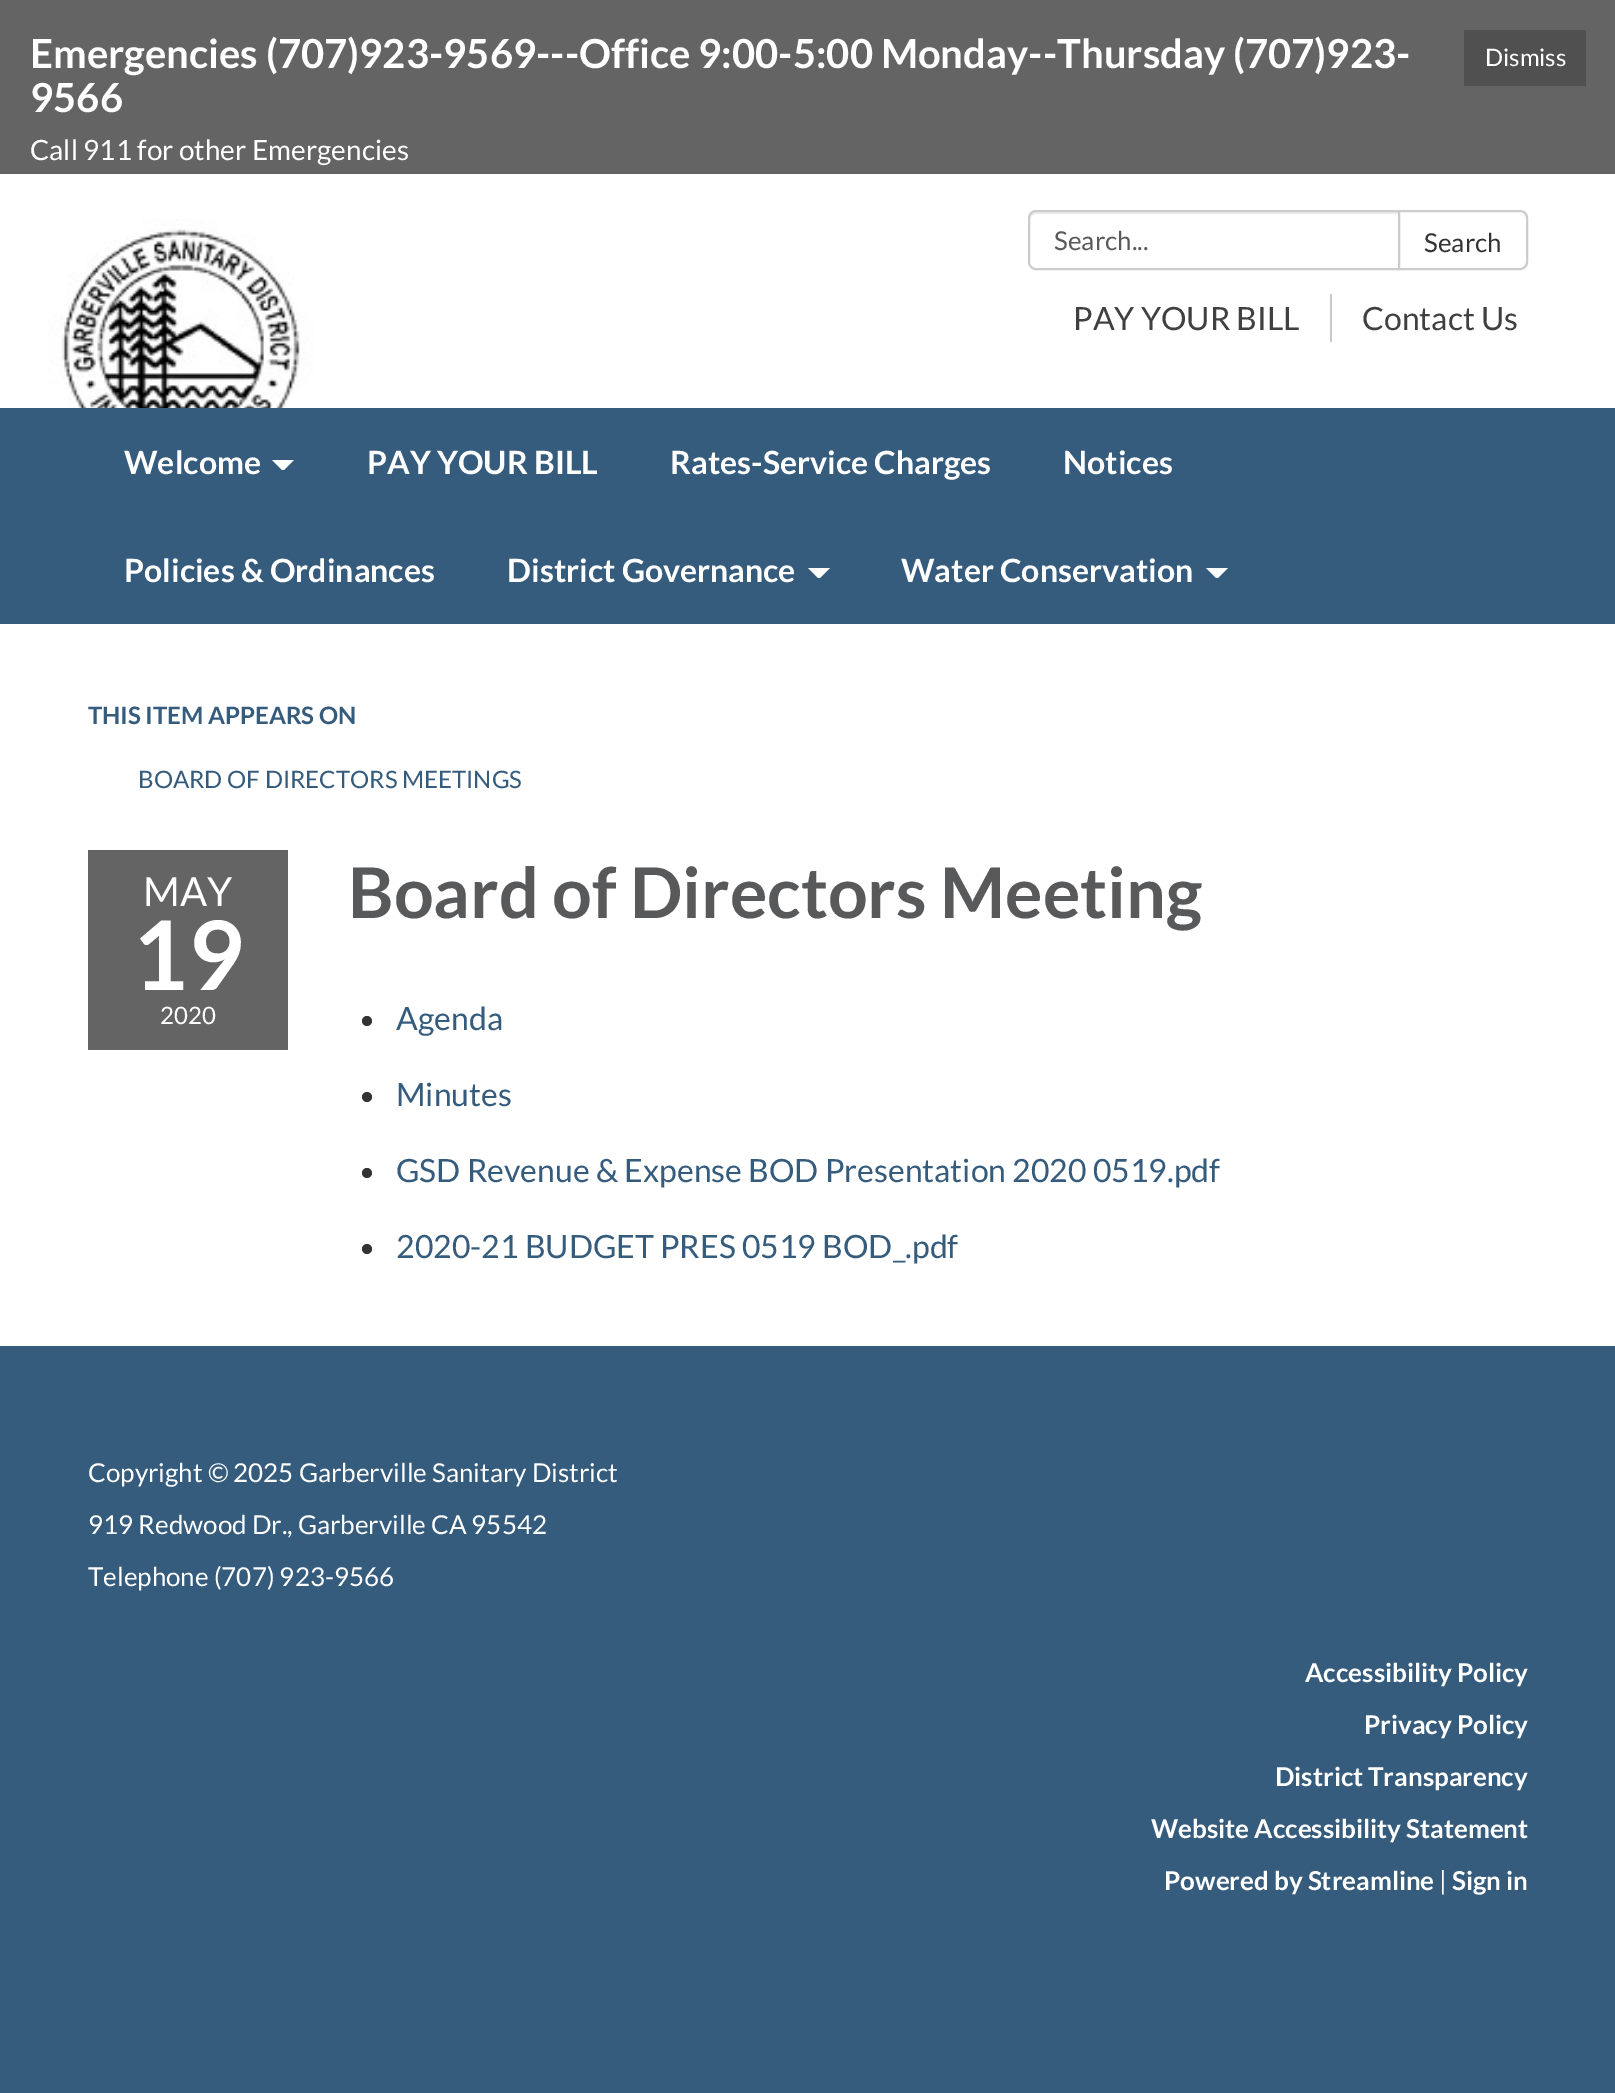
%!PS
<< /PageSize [1615 2093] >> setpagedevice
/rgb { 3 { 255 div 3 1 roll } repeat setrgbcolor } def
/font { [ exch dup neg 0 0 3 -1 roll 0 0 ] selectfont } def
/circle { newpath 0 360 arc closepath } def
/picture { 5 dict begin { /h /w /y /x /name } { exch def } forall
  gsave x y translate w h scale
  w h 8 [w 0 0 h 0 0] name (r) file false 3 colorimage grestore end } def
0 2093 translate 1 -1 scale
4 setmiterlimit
54 92 125 rgb
0 0 1615 2093 rectfill
[
  [0 0 1615 174 100 100 100]
  [1464 30 122 56 80 80 80]
  [0 174 1615 234 255 255 255]
] { aload pop rgb rectfill } forall
(img/1.rgb) 48 219 272 189 picture
236 236 236 rgb
1036 214 moveto 1398 214 lineto 1398 212 lineto 1036 212 lineto 1033 212 1030 215 1030 218 curveto 1030 220 lineto 1030 217 1033 214 1036 214 curveto closepath fill
204 204 204 rgb
2 setlinewidth
1036 211 moveto 1399 211 lineto 1399 269 lineto 1036 269 lineto 1032 269 1029 266 1029 262 curveto 1029 218 lineto 1029 214 1032 211 1036 211 curveto closepath stroke
255 255 255 rgb
1399 211 moveto 1520 211 lineto 1524 211 1527 214 1527 218 curveto 1527 262 lineto 1527 266 1524 269 1520 269 curveto 1399 269 lineto closepath gsave fill grestore
204 204 204 rgb
stroke
200 201 203 rgb
1330 294 2 48 rectfill
255 255 255 rgb
272 460 moveto 294 460 lineto 284 470 lineto 282 470 lineto closepath fill
808 568 moveto 830 568 lineto 820 578 lineto 818 578 lineto closepath fill
1206 568 moveto 1228 568 lineto 1218 578 lineto 1216 578 lineto closepath fill
0 624 1615 722 rectfill
100 100 100 rgb
88 850 200 200 rectfill
51 51 51 rgb
367 1021 5 circle fill
367 1097 5 circle fill
367 1173 5 circle fill
367 1249 5 circle fill
/Lato-Bold 40 font
255 255 255 rgb
30 68 moveto (Emergencies \(707\)923-9569---Office 9:00-5:00 Monday--Thursday \(707\)923-) show
30 112 moveto (9566) show
/Lato-Regular 24 font
1485 66 moveto (Dismiss) show
/Lato-Regular 28 font
30 160 moveto (Call 911 for other Emergencies) show
/Lato-Regular 26 font
88 89 91 rgb
1054 250 moveto (Search...) show
51 51 51 rgb
1424 252 moveto (Search) show
/Lato-Regular 32 font
64 64 65 rgb
1073 330 moveto (PAY YOUR BILL) show
1362 330 moveto (Contact Us) show
/Lato-Bold 32 font
255 255 255 rgb
[
  [(Welcome) 124 474]
  [(PAY YOUR BILL) 367 474]
  [(Rates-Service Charges) 670 474]
  [(Notices) 1063 474]
  [(Policies & Ordinances) 124 582]
  [(District Governance) 507 582]
  [(Water Conservation) 901 582]
] { aload pop moveto show } forall
/Lato-Bold 24 font
54 92 125 rgb
88 724 moveto (THIS ITEM APPEARS ON) show
/Lato-Regular 24 font
138 788 moveto (BOARD OF DIRECTORS MEETINGS) show
/Lato-Regular 40 font
255 255 255 rgb
143 906 moveto (MAY) show
/Lato-Bold 96 font
132 990 moveto (19) show
/Lato-Regular 24 font
160 1024 moveto (2020) show
/Lato-Bold 70 font
88 89 91 rgb
348 918 moveto (Board of Directors Meeting) show
/Lato-Regular 32 font
54 92 125 rgb
[
  [(Agenda) 396 1030]
  [(Minutes) 396 1106]
  [(GSD Revenue & Expense BOD Presentation 2020 0519.pdf) 396 1182]
  [(2020-21 BUDGET PRES 0519 BOD_.pdf) 396 1258]
] { aload pop moveto show } forall
/Lato-Regular 26 font
255 255 255 rgb
[
  [(Copyright © 2025 Garberville Sanitary District) 88 1482]
  [(919 Redwood Dr., Garberville CA 95542) 88 1534]
  [(Telephone \(707\) 923-9566) 88 1586]
] { aload pop moveto show } forall
/Lato-Bold 26 font
[
  [(Accessibility Policy) 1305 1682]
  [(Privacy Policy) 1364 1734]
  [(District Transparency) 1275 1786]
  [(Website Accessibility Statement) 1151 1838]
  [(Powered by Streamline) 1164 1890]
] { aload pop moveto show } forall
/Lato-Regular 26 font
1439 1890 moveto (|) show
/Lato-Bold 26 font
1452 1890 moveto (Sign in) show
showpage
